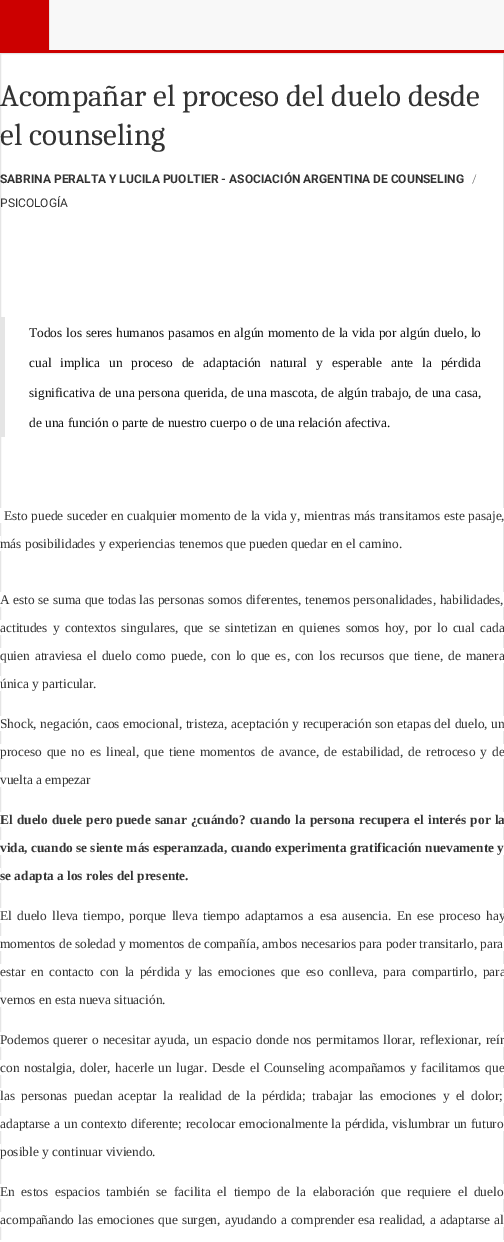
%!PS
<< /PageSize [504 1242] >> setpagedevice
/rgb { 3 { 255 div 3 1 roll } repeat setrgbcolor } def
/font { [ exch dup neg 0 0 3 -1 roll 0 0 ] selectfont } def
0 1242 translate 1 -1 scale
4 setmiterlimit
255 255 255 rgb
0 0 504 1242 rectfill
[
  [50 0 454 50 248 248 248]
  [0 50 504 3 204 0 0]
  [0 0 49 50 204 0 0]
  [49 0 1 50 229 229 229]
] { aload pop rgb rectfill } forall
0.5 53.5 503 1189 rectstroke
[
  [1 317 4 120 229 229 229]
  [0 508 504 15 255 255 255]
  [0 536 1 15 255 255 255]
  [0 592 504 15 255 255 255]
  [0 620 504 15 255 255 255]
  [0 648 504 15 255 255 255]
  [0 676 1 15 255 255 255]
  [0 716 504 15 255 255 255]
  [0 744 504 15 255 255 255]
  [0 772 1 15 255 255 255]
  [0 812 504 15 255 255 255]
  [0 840 504 15 255 255 255]
  [0 868 1 15 255 255 255]
  [0 908 504 15 255 255 255]
  [0 936 504 15 255 255 255]
  [0 964 504 15 255 255 255]
  [0 992 1 15 255 255 255]
  [0 1032 504 15 255 255 255]
  [0 1060 504 15 255 255 255]
  [0 1088 504 15 255 255 255]
  [0 1116 504 15 255 255 255]
  [0 1144 1 15 255 255 255]
  [0 1184 504 15 255 255 255]
  [0 1212 504 15 255 255 255]
  [0 1240 504 2 255 255 255]
] { aload pop rgb rectfill } forall
/Caladea-Regular 31 font
51 51 51 rgb
0 106 moveto (Acompañar el proceso del duelo desde) show
0 145 moveto (el counseling) show
/Roboto-Bold 12 font
0 183 moveto (SABRINA PERALTA Y LUCILA PUOLTIER - ASOCIACIÓN ARGENTINA DE COUNSELING) show
/Roboto-Light 12 font
102 102 102 rgb
472 183 moveto (/) show
/Roboto-Regular 12 font
51 51 51 rgb
0 207 moveto (PSICOLOGÍA) show
/LiberationSerif-Regular 13.35 font
17 17 17 rgb
29 337 moveto 0.5 0 32 (Todos los seres humanos pasamos en algún momento de la vida por algún duelo, lo) widthshow
29 367 moveto 5.6 0 32 (cual implica un proceso de adaptación natural y esperable ante la pérdida) widthshow
29 397 moveto 0.5 0 32 (significativa de una persona querida, de una mascota, de algún trabajo, de una casa,) widthshow
29 427 moveto (de una función o parte de nuestro cuerpo o de una relación afectiva.) show
51 51 51 rgb
4 520 moveto 0.25 0 32 (Esto puede suceder en cualquier momento de la vida y, mientras más transitamos este pasaje,) widthshow
0 548 moveto (más posibilidades y experiencias tenemos que pueden quedar en el camino.) show
0 604 moveto 0.25 0 32 (A esto se suma que todas las personas somos diferentes, tenemos personalidades, habilidades,) widthshow
0 632 moveto 2 0 32 (actitudes y contextos singulares, que se sintetizan en quienes somos hoy, por lo cual cada) widthshow
0 660 moveto 1.7 0 32 (quien atraviesa el duelo como puede, con lo que es, con los recursos que tiene, de manera) widthshow
0 688 moveto (única y particular.) show
0 728 moveto 0.4 0 32 (Shock, negación, caos emocional, tristeza, aceptación y recuperación son etapas del duelo, un) widthshow
0 756 moveto 1.9 0 32 (proceso que no es lineal, que tiene momentos de avance, de estabilidad, de retroceso y de) widthshow
0 784 moveto (vuelta a empezar) show
/LiberationSerif-Bold 13.35 font
0 824 moveto 0.75 0 32 (El duelo duele pero puede sanar ¿cuándo? cuando la persona recupera el interés por la) widthshow
0 852 moveto (vida, cuando se siente más esperanzada, cuando experimenta gratificación nuevamente y) show
0 880 moveto (se adapta a los roles del presente.) show
/LiberationSerif-Regular 13.35 font
0 920 moveto 2 0 32 (El duelo lleva tiempo, porque lleva tiempo adaptarnos a esa ausencia. En ese proceso hay) widthshow
0 948 moveto (momentos de soledad y momentos de compañía, ambos necesarios para poder transitarlo, para) show
0 976 moveto 2.25 0 32 (estar en contacto con la pérdida y las emociones que eso conlleva, para compartirlo, para) widthshow
0 1004 moveto (vernos en esta nueva situación.) show
0 1044 moveto 1 0 32 (Podemos querer o necesitar ayuda, un espacio donde nos permitamos llorar, reflexionar, reír) widthshow
0 1072 moveto 1.25 0 32 (con nostalgia, doler, hacerle un lugar. Desde el Counseling acompañamos y facilitamos que) widthshow
0 1100 moveto 2.75 0 32 (las personas puedan aceptar la realidad de la pérdida; trabajar las emociones y el dolor;) widthshow
0 1128 moveto 0.5 0 32 (adaptarse a un contexto diferente; recolocar emocionalmente la pérdida, vislumbrar un futuro) widthshow
0 1156 moveto (posible y continuar viviendo.) show
0 1196 moveto 3.25 0 32 (En estos espacios también se facilita el tiempo de la elaboración que requiere el duelo) widthshow
0 1224 moveto 0.75 0 32 (acompañando las emociones que surgen, ayudando a comprender esa realidad, a adaptarse al) widthshow
showpage
